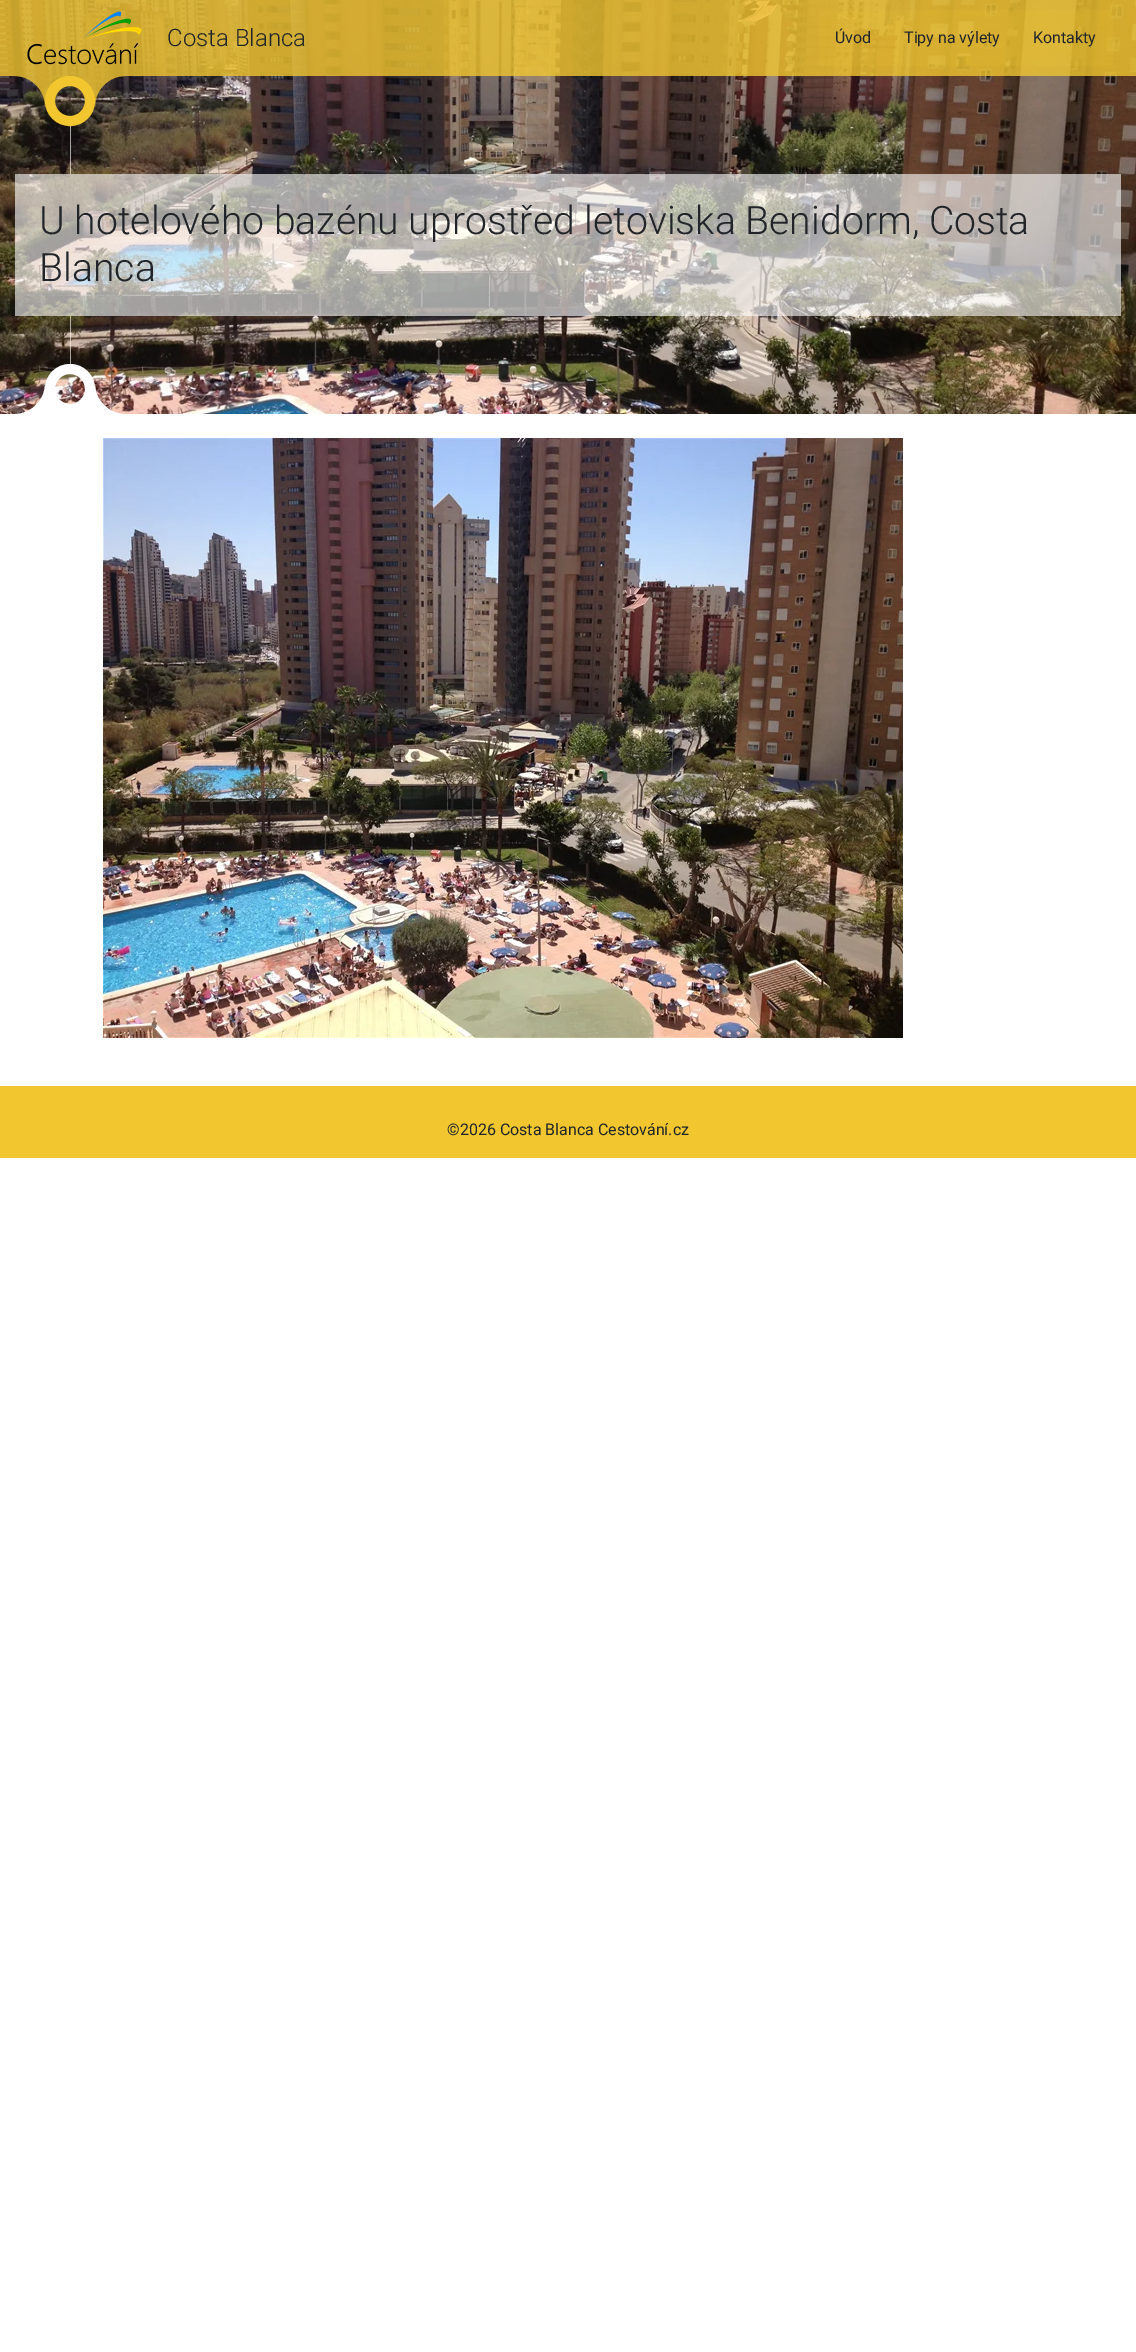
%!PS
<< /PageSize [1136 2352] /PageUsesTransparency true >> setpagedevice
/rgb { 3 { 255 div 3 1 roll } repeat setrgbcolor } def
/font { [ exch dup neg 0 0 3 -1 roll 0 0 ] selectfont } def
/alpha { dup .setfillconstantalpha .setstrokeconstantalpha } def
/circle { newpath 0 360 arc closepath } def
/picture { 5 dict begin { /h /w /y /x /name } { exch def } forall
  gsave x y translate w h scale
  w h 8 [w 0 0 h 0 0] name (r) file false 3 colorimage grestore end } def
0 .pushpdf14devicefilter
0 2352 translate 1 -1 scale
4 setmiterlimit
255 255 255 rgb
0 0 1136 2352 rectfill
(img/1.rgb) 0 0 1136 414 picture
0.8 alpha
241 198 47 rgb
0 0 1136 76 rectfill
1 alpha
(img/2.rgb) 27 11 115 54 picture
0.1 alpha
[
  [819 10 69 56 241 198 47]
  [888 10 129 56 241 198 47]
  [1017 10 96 56 241 198 47]
] { aload pop rgb rectfill } forall
gsave
15 76 30 30 rectclip
0.8 alpha
30 61 moveto 18 61 7 68 3 79 curveto 27 67 54 94 42 118 curveto 71 105 62 61 30 61 curveto closepath fill
grestore
1 alpha
10 setlinewidth
70 101 20 circle stroke
gsave
45 76 30 30 rectclip
0.8 alpha
60 61 moveto 28 61 19 105 48 118 curveto 36 94 63 67 87 79 curveto 83 68 72 61 60 61 curveto closepath fill
grestore
gsave
65 76 30 30 rectclip
0.8 alpha
80 61 moveto 68 61 57 68 53 79 curveto 77 67 104 94 92 118 curveto 121 105 112 61 80 61 curveto closepath fill
grestore
gsave
95 76 30 30 rectclip
0.8 alpha
110 61 moveto 78 61 69 105 98 118 curveto 86 94 113 67 137 79 curveto 133 68 122 61 110 61 curveto closepath fill
grestore
0.6 alpha
[
  [15 174 1106 142 255 255 255]
  [70 126 1 48 255 255 255]
  [70 316 1 48 255 255 255]
] { aload pop rgb rectfill } forall
gsave
15 384 30 30 rectclip
1 alpha
3 411 moveto 6 419 13 425 21 428 curveto 57 439 76 387 42 372 curveto 54 396 27 423 3 411 curveto closepath fill
grestore
1 alpha
70 389 20 circle stroke
gsave
45 384 30 30 rectclip
48 372 moveto 14 387 33 439 69 428 curveto 77 425 84 419 87 411 curveto 63 423 36 396 48 372 curveto closepath fill
grestore
gsave
65 384 30 30 rectclip
53 411 moveto 56 419 63 425 71 428 curveto 107 439 126 387 92 372 curveto 104 396 77 423 53 411 curveto closepath fill
grestore
gsave
95 384 30 30 rectclip
98 372 moveto 90 375 84 382 81 390 curveto 70 426 122 445 137 411 curveto 113 423 86 396 98 372 curveto closepath fill
grestore
(img/3.rgb) 103 438 800 600 picture
241 198 47 rgb
0 1086 1136 72 rectfill
/Roboto-Light 24 font
33 37 41 rgb
167 46 moveto (Costa Blanca) show
/Roboto-Regular 16 font
[
  [(Úvod) 835 43]
  [(Tipy na výlety) 904 43]
  [(Kontakty) 1033 43]
] { aload pop moveto show } forall
/Roboto-Light 39.2 font
39 234 moveto (U hotelového bazénu uprostřed letoviska Benidorm, Costa) show
39 281 moveto (Blanca) show
/Roboto-Regular 16 font
447 1135 moveto (©2026 Costa Blanca Cestování.cz) show
.poppdf14devicefilter showpage
